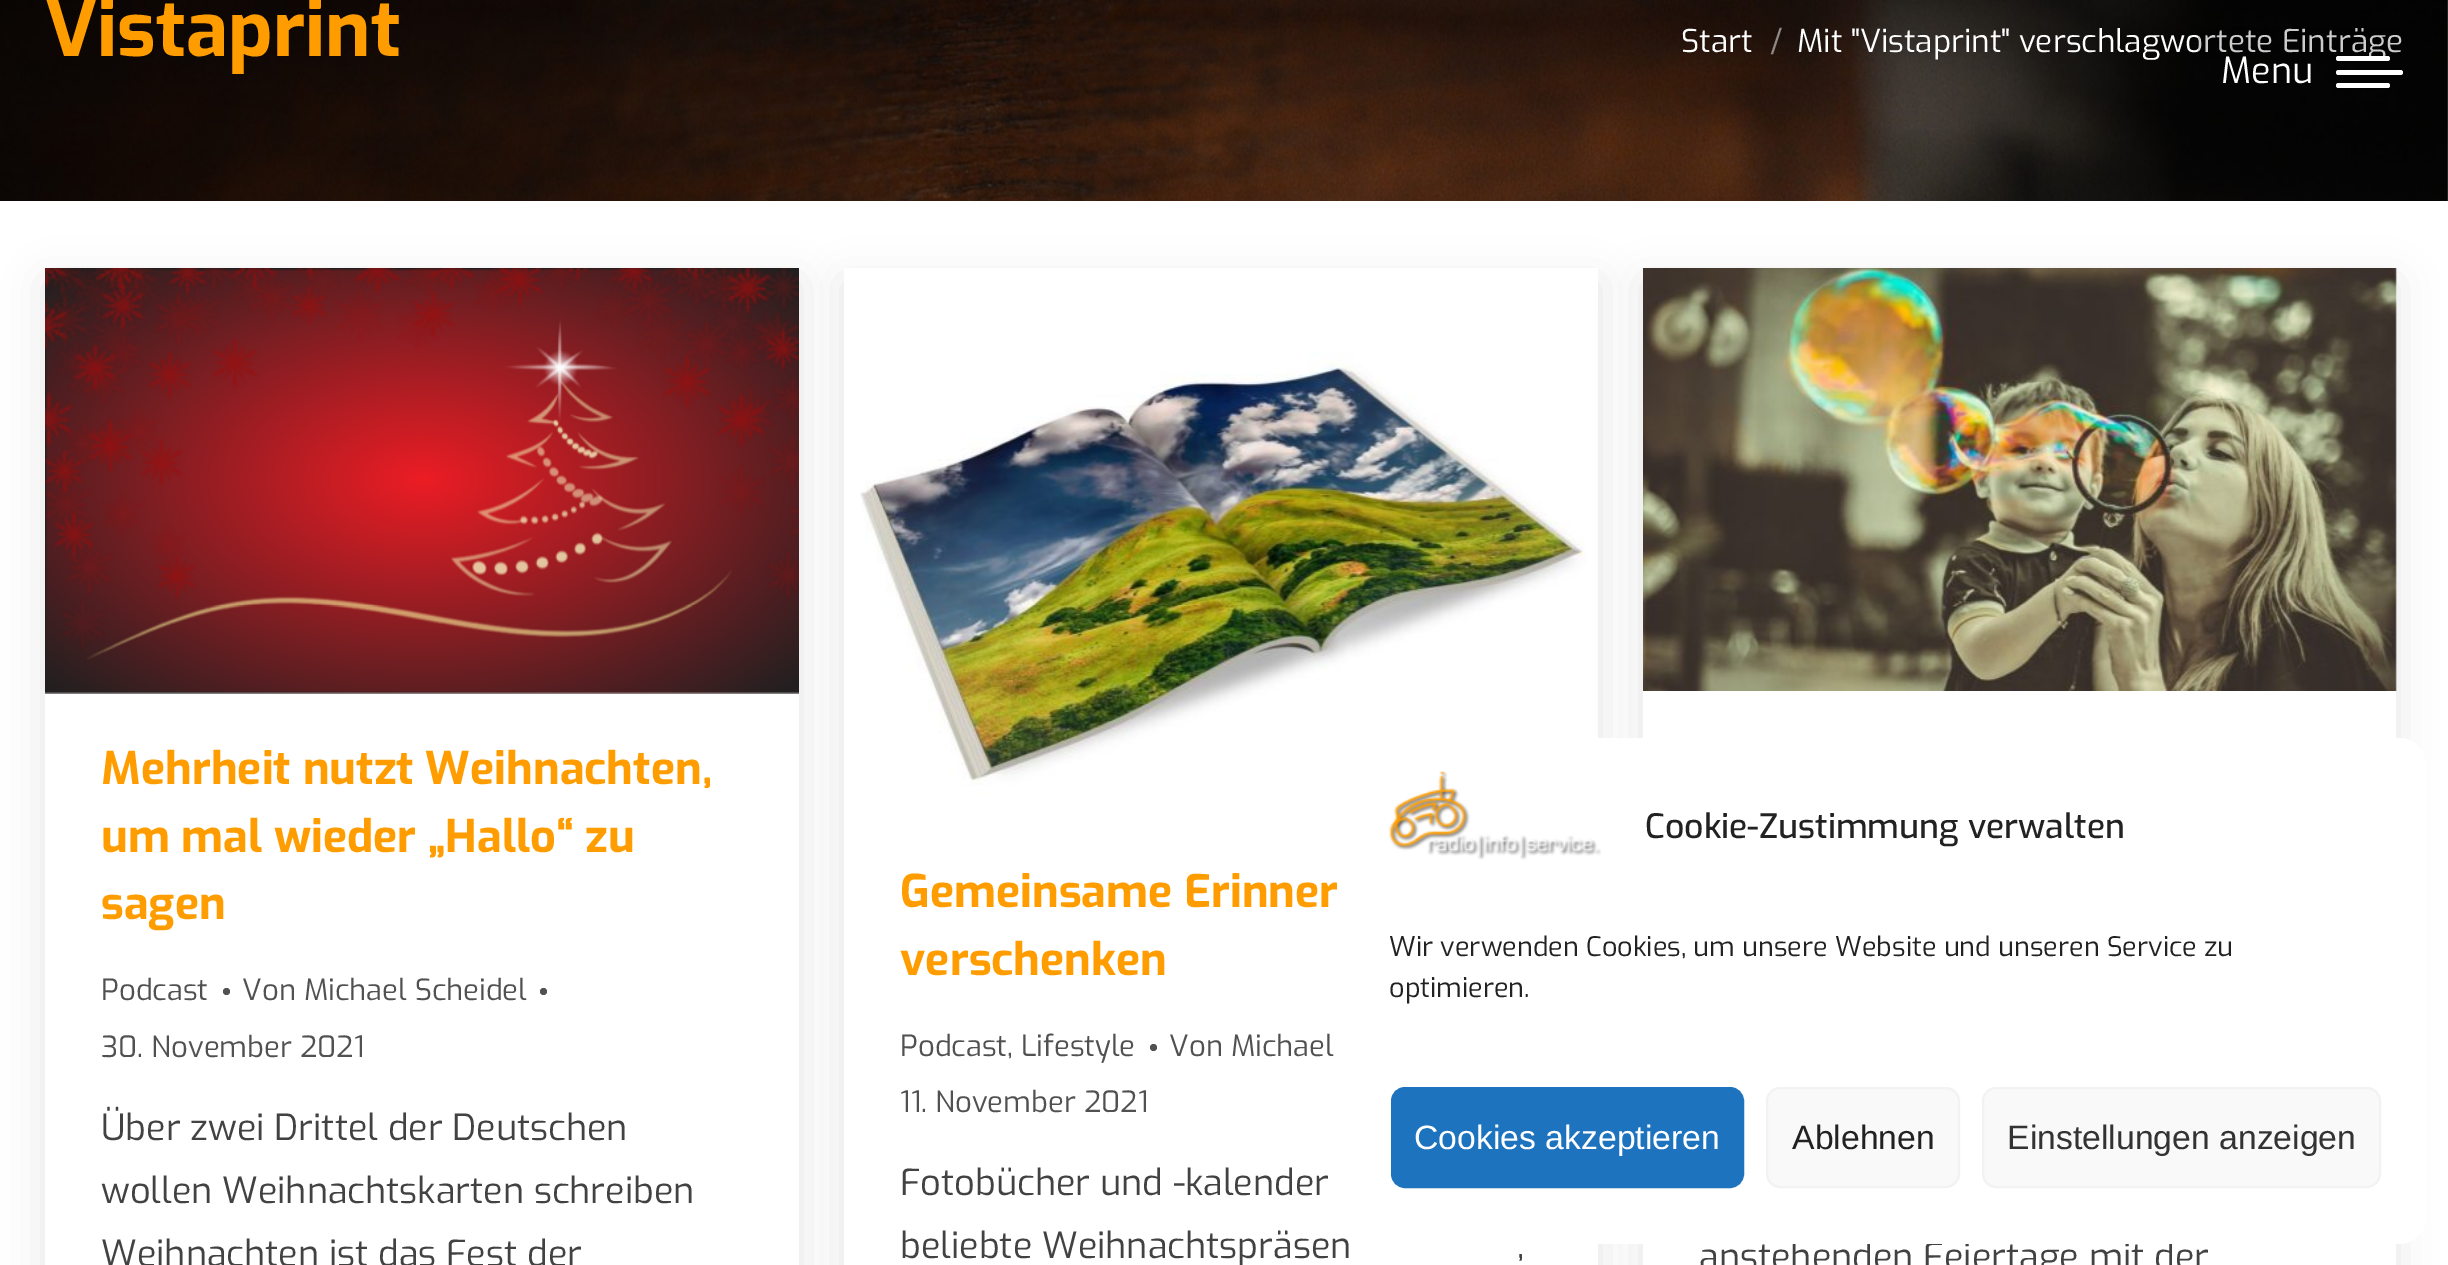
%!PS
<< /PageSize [2448 1265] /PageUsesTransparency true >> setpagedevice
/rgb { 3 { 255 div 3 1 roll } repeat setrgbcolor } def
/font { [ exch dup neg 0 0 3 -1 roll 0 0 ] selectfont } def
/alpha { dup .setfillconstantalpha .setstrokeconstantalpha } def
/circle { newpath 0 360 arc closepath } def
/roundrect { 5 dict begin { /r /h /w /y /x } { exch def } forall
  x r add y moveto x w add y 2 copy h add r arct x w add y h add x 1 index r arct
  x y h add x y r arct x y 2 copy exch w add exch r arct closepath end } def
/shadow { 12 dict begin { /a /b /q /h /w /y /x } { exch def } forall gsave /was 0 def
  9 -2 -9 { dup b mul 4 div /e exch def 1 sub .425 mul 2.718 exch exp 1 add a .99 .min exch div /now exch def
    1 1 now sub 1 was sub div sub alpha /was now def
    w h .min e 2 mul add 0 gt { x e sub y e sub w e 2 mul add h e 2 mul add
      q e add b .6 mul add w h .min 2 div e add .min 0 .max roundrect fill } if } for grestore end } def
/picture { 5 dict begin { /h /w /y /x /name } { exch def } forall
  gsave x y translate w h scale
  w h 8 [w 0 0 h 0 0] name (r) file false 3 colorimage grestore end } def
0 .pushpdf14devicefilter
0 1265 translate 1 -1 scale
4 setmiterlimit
255 255 255 rgb
0 0 2448 1265 rectfill
(img/1.rgb) 0 0 2448 201 picture
2336 70 67 5 2.5 roundrect fill
2336 83 54 5 2.5 roundrect fill
gsave
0 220 moveto 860 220 lineto 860 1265 lineto 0 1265 lineto closepath 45 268 moveto 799 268 lineto 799 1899 lineto 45 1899 lineto closepath eoclip newpath
0 0 0 rgb
45 281 754 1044 0 20 0.1 shadow
grestore
(img/2.rgb) 45 268 754 426 picture
81 81 81 rgb
226.5 991.5 3.5 circle fill
543.5 991.5 3.5 circle fill
gsave
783 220 moveto 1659 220 lineto 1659 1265 lineto 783 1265 lineto closepath 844 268 moveto 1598 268 lineto 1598 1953 lineto 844 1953 lineto closepath eoclip newpath
0 0 0 rgb
844 281 754 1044 0 20 0.1 shadow
grestore
(img/3.rgb) 860 299 738 516 picture
1153.5 1047.5 3.5 circle fill
gsave
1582 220 moveto 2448 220 lineto 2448 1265 lineto 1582 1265 lineto closepath 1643 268 moveto 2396 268 lineto 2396 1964 lineto 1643 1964 lineto closepath eoclip newpath
0 0 0 rgb
1643 281 753 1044 0 20 0.1 shadow
grestore
(img/4.rgb) 1643 268 754 423 picture
/Exo-Bold 76.5 font
255 157 0 rgb
45 56 moveto (Vistaprint) show
/Exo-Regular 31.5 font
255 255 255 rgb
1681 52 moveto (Start) show
143 136 133 rgb
1770 52 moveto (/) show
255 255 255 rgb
1797 52 moveto (Mit "Vistaprint" verschlagwortete Einträge) show
0.2 alpha
0 0 0 rgb
2198 27 204 33 rectfill
/Exo-Regular 36 font
1 alpha
255 255 255 rgb
2221 83 moveto (Menu) show
2336 56 54 5 2.5 roundrect fill
/Exo-Bold 45 font
255 157 0 rgb
[
  [(Mehrheit nutzt Weihnachten,) 101 784]
  [(um mal wieder „Hallo“ zu) 101 852]
  [(sagen) 101 919]
] { aload pop moveto show } forall
/Exo-Regular 29.25 font
81 81 81 rgb
[
  [(Podcast) 101 1000]
  [(Von Michael Scheidel) 242 1000]
  [(30. November 2021) 101 1057]
] { aload pop moveto show } forall
/Exo-Regular 36 font
66 66 66 rgb
[
  [(Über zwei Drittel der Deutschen) 101 1140]
  [(wollen Weihnachtskarten schreiben) 101 1203]
  [(Weihnachten ist das Fest der) 101 1266]
] { aload pop moveto show } forall
/Exo-Bold 45 font
255 157 0 rgb
900 907 moveto (Gemeinsame Erinner) show
900 975 moveto (verschenken) show
/Exo-Regular 29.25 font
81 81 81 rgb
[
  [(Podcast, Lifestyle) 900 1056]
  [(Von Michael) 1169 1056]
  [(11. November 2021) 900 1112]
] { aload pop moveto show } forall
/Exo-Regular 36 font
66 66 66 rgb
[
  [(Fotobücher und -kalender) 900 1195]
  [(beliebte Weihnachtspräsen) 900 1258]
  [(,) 1517 1258]
  [(anstehenden Feiertage mit der) 1699 1269]
] { aload pop moveto show } forall
255 255 255 rgb
1346 738 1080 506 27 roundrect fill
(img/5.rgb) 1389 771 212 89 picture
/Exo-Medium 33.75 font
34 34 34 rgb
1645 838 moveto (Cookie-Zustimmung verwalten) show
/Exo-Regular 27 font
1389 956 moveto (Wir verwenden Cookies, um unsere Website und unseren Service zu) show
1389 997 moveto (optimieren.) show
30 115 190 rgb
1392 1088 351 99 13 roundrect gsave fill grestore
2 setlinewidth
stroke
/LiberationSans-Regular 33.75 font
255 255 255 rgb
1414 1149 moveto (Cookies akzeptieren) show
249 249 249 rgb
1767 1088 192 99 13 roundrect gsave fill grestore
242 242 242 rgb
stroke
34 34 34 rgb
1792 1149 moveto (Ablehnen) show
249 249 249 rgb
1983 1088 397 99 13 roundrect gsave fill grestore
242 242 242 rgb
stroke
51 51 51 rgb
2007 1149 moveto (Einstellungen anzeigen) show
.poppdf14devicefilter showpage
